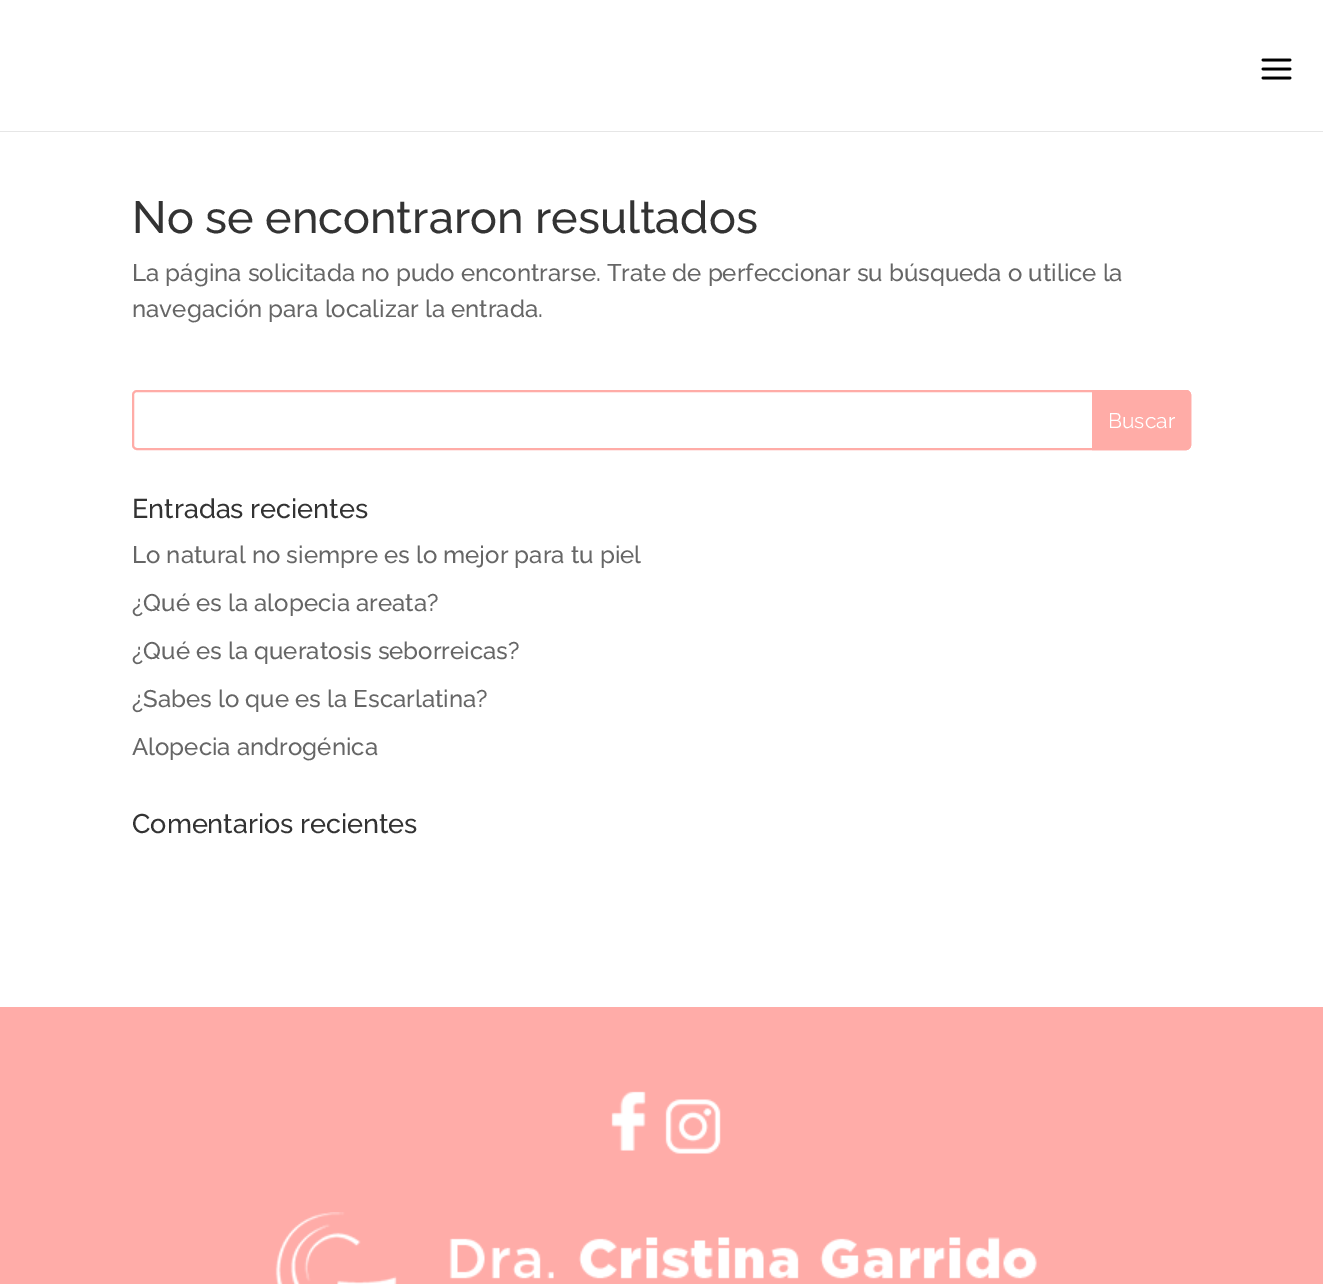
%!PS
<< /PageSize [1323 1284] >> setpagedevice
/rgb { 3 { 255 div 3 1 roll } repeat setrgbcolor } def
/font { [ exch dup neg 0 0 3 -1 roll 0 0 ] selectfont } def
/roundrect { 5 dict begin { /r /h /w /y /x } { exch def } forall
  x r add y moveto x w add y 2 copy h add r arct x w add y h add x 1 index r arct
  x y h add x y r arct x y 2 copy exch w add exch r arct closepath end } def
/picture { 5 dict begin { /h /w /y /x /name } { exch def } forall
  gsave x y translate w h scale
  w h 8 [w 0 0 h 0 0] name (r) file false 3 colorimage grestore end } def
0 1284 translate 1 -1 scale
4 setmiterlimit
255 255 255 rgb
0 0 1323 1284 rectfill
230 230 230 rgb
0 131 1323 1 rectfill
(img/1.rgb) 1261 58 31 22 picture
255 172 167 rgb
2 setlinewidth
133 391 1057 58 4 roundrect stroke
1093 391 moveto 1186 391 lineto 1188 391 1190 393 1190 395 curveto 1190 445 lineto 1190 447 1188 449 1186 449 curveto 1093 449 lineto closepath gsave fill grestore
stroke
255 172 168 rgb
0 1007 1323 277 rectfill
(img/2.rgb) 611 1091 35 60 picture
(img/3.rgb) 665 1099 56 55 picture
(img/4.rgb) 275 1212 762 72 picture
/Raleway-Thin 45 font
51 51 51 rgb
132 233 moveto (No se encontraron resultados) show
/Raleway-Thin 24 font
102 102 102 rgb
132 281 moveto (La página solicitada no pudo encontrarse. Trate de perfeccionar su búsqueda o utilice la) show
132 317 moveto (navegación para localizar la entrada.) show
/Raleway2-Thin 21 font
255 255 255 rgb
1108 428 moveto (Buscar) show
/Raleway-Thin 27 font
51 51 51 rgb
132 518 moveto (Entradas recientes) show
/Raleway-Thin 24 font
102 102 102 rgb
[
  [(Lo natural no siempre es lo mejor para tu piel) 132 563]
  [(¿Qué es la alopecia areata?) 132 611]
  [(¿Qué es la queratosis seborreicas?) 132 659]
  [(¿Sabes lo que es la Escarlatina?) 132 707]
  [(Alopecia androgénica) 132 755]
] { aload pop moveto show } forall
/Raleway-Thin 27 font
51 51 51 rgb
132 833 moveto (Comentarios recientes) show
showpage
